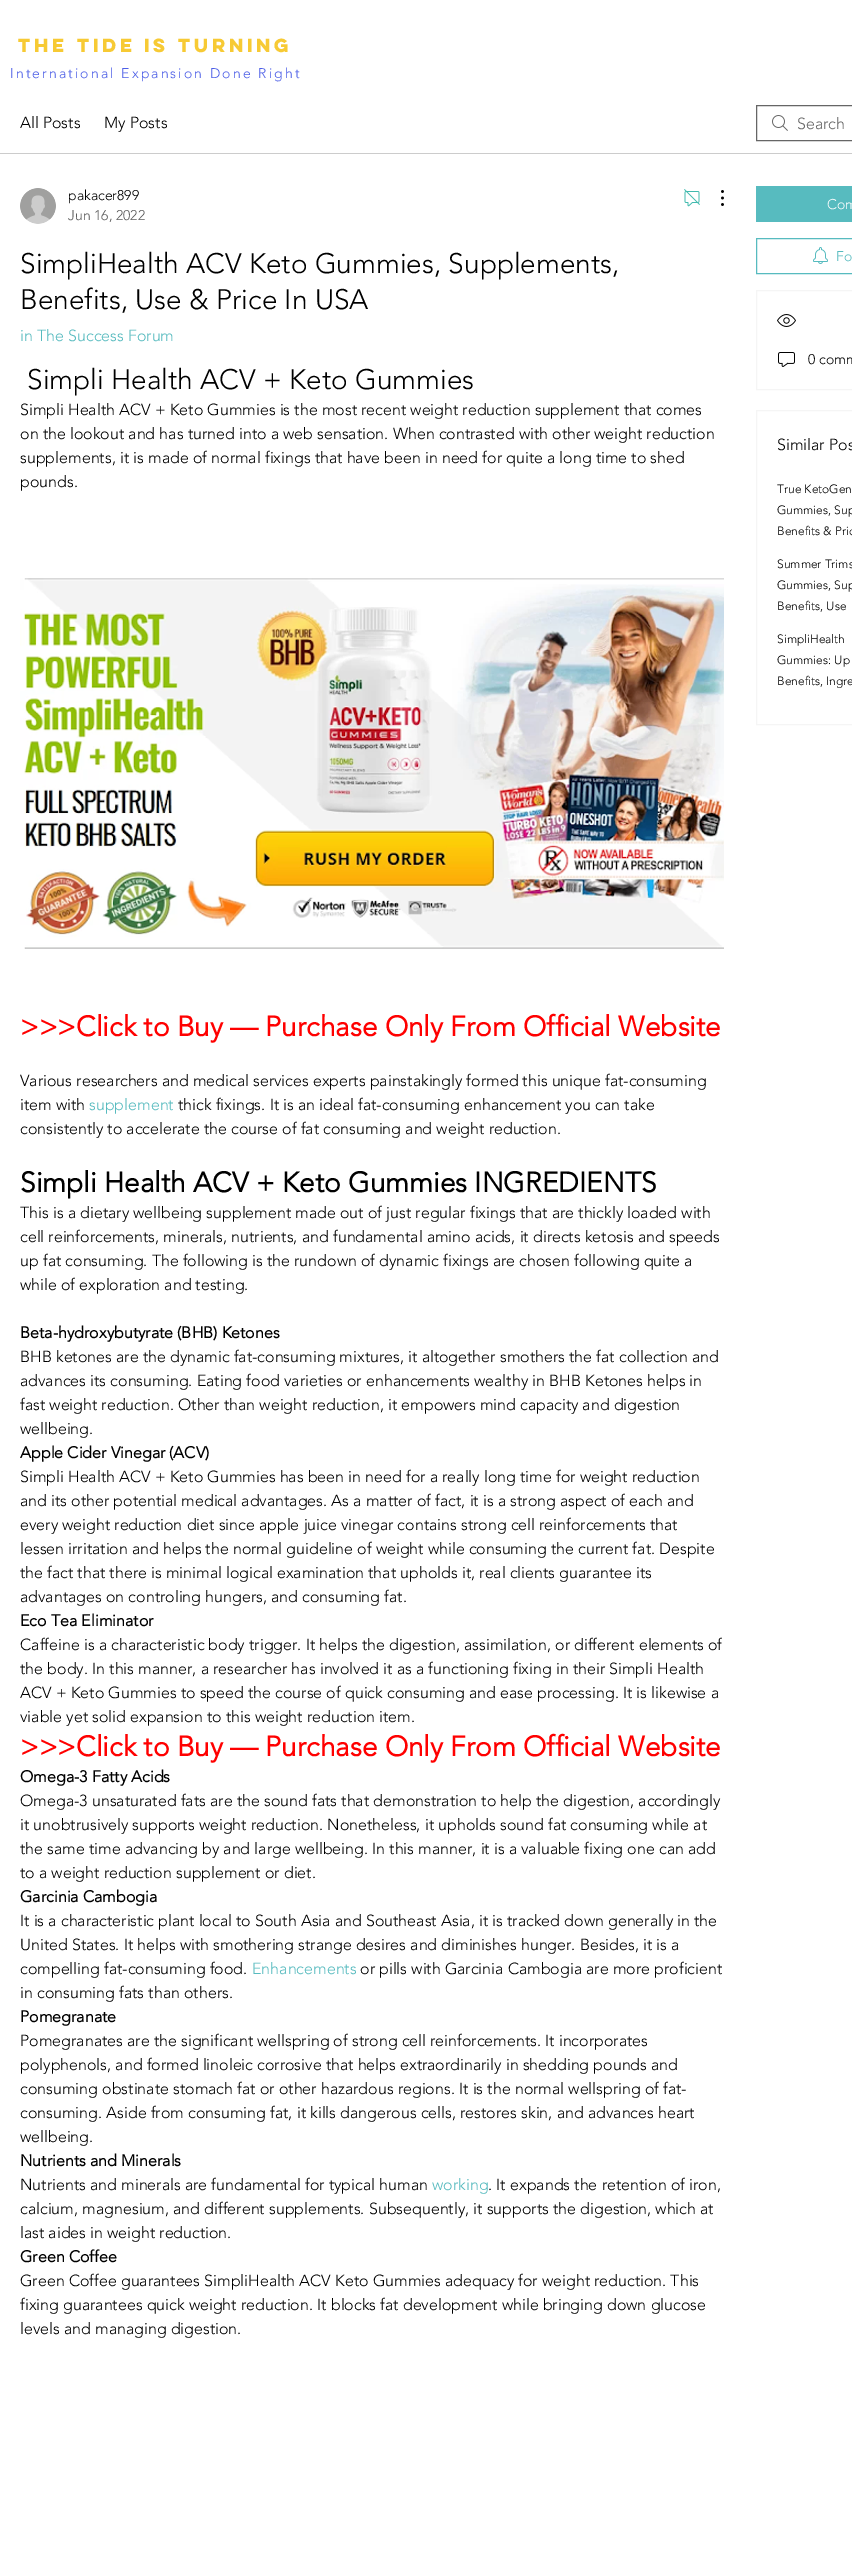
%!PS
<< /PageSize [852 2559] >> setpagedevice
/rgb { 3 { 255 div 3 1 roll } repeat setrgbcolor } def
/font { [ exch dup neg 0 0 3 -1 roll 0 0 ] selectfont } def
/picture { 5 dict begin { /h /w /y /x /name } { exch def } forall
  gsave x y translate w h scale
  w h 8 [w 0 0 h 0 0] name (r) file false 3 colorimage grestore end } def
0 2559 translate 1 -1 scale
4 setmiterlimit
255 255 255 rgb
0 0 852 2559 rectfill
204 204 204 rgb
0 153 852 1 rectfill
(img/1.rgb) 772 115 16 16 picture
102 102 102 rgb
756.5 105.5 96 35 rectstroke
(img/2.rgb) 20 188 36 36 picture
(img/3.rgb) 684 189 16 18 picture
(img/4.rgb) 721 190 3 16 picture
(img/5.rgb) 20 578 704 371 picture
87 187 191 rgb
756 186 96 36 rectfill
756.5 238.5 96 35 rectstroke
(img/6.rgb) 813 247 15 17 picture
245 245 245 rgb
756.5 290.5 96 99 rectstroke
(img/7.rgb) 777 314 19 13 picture
(img/8.rgb) 778 352 17 15 picture
756.5 410.5 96 314 rectstroke
/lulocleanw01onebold-Bold 17 font
247 202 52 rgb
18 52 moveto (The tide is turning) show
/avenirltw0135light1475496-Light 14 font
77 95 231 rgb
10 78 moveto 2.1 0 (International Expansion Done Right) ashow
/avenirltw0135light1475496-Light 16 font
0 0 0 rgb
20 128 moveto (All Posts) show
104 128 moveto (My Posts) show
102 102 102 rgb
797 129 moveto (Search) show
/avenirltw0135light1475496-Light 14 font
0 0 0 rgb
68 200 moveto (pakacer899) show
92 92 92 rgb
68 220 moveto (Jun 16, 2022) show
/avenirltw0135light1475496-Light 28 font
0 0 0 rgb
20 273 moveto (SimpliHealth ACV Keto Gummies, Supplements,) show
20 309 moveto (Benefits, Use & Price In USA) show
/avenirltw0135light1475496-Light 16 font
87 187 191 rgb
20 341 moveto (in The Success Forum) show
/avenirltw0135light1475496-Light 28 font
0 0 0 rgb
27 389 moveto (Simpli Health ACV + Keto Gummies) show
/avenirltw0135light1475496-Light 16 font
[
  [(Simpli Health ACV + Keto Gummies is the most recent weight reduction supplement that comes) 20 415]
  [(on the lookout and has turned into a web sensation. When contrasted with other weight reduction) 20 439]
  [(supplements, it is made of normal fixings that have been in need for quite a long time to shed) 20 463]
  [(pounds.) 20 487]
] { aload pop moveto show } forall
/avenirltw0135light1475496-Bold 28 font
255 0 0 rgb
20 1036 moveto (>>>Click to Buy — Purchase Only From Official Website) show
/avenirltw0135light1475496-Light 16 font
0 0 0 rgb
20 1086 moveto (Various researchers and medical services experts painstakingly formed this unique fat-consuming) show
20 1110 moveto (item with) show
87 187 191 rgb
89 1110 moveto (supplement) show
0 0 0 rgb
178 1110 moveto (thick fixings. It is an ideal fat-consuming enhancement you can take) show
20 1134 moveto (consistently to accelerate the course of fat consuming and weight reduction.) show
/avenirltw0135light1475496-Bold 28 font
20 1192 moveto (Simpli Health ACV + Keto Gummies INGREDIENTS) show
/avenirltw0135light1475496-Light 16 font
[
  [(This is a dietary wellbeing supplement made out of just regular fixings that are thickly loaded with) 20 1218]
  [(cell reinforcements, minerals, nutrients, and fundamental amino acids, it directs ketosis and speeds) 20 1242]
  [(up fat consuming. The following is the rundown of dynamic fixings are chosen following quite a) 20 1266]
  [(while of exploration and testing.) 20 1290]
] { aload pop moveto show } forall
/avenirltw0135light1475496-Bold 16 font
20 1338 moveto (Beta-hydroxybutyrate \(BHB\) Ketones) show
/avenirltw0135light1475496-Light 16 font
[
  [(BHB ketones are the dynamic fat-consuming mixtures, it altogether smothers the fat collection and) 20 1362]
  [(advances its consuming. Eating food varieties or enhancements wealthy in BHB Ketones helps in) 20 1386]
  [(fast weight reduction. Other than weight reduction, it empowers mind capacity and digestion) 20 1410]
  [(wellbeing.) 20 1434]
] { aload pop moveto show } forall
/avenirltw0135light1475496-Bold 16 font
20 1458 moveto (Apple Cider Vinegar \(ACV\)) show
/avenirltw0135light1475496-Light 16 font
[
  [(Simpli Health ACV + Keto Gummies has been in need for a really long time for weight reduction) 20 1482]
  [(and its other potential medical advantages. As a matter of fact, it is a strong aspect of each and) 20 1506]
  [(every weight reduction diet since apple juice vinegar contains strong cell reinforcements that) 20 1530]
  [(lessen irritation and helps the normal guideline of weight while consuming the current fat. Despite) 20 1554]
  [(the fact that there is minimal logical examination that upholds it, real clients guarantee its) 20 1578]
  [(advantages on controling hungers, and consuming fat.) 20 1602]
] { aload pop moveto show } forall
/avenirltw0135light1475496-Bold 16 font
20 1626 moveto (Eco Tea Eliminator) show
/avenirltw0135light1475496-Light 16 font
[
  [(Caffeine is a characteristic body trigger. It helps the digestion, assimilation, or different elements of) 20 1650]
  [(the body. In this manner, a researcher has involved it as a functioning fixing in their Simpli Health) 20 1674]
  [(ACV + Keto Gummies to speed the course of quick consuming and ease processing. It is likewise a) 20 1698]
  [(viable yet solid expansion to this weight reduction item.) 20 1722]
] { aload pop moveto show } forall
/avenirltw0135light1475496-Bold 28 font
255 0 0 rgb
20 1756 moveto (>>>Click to Buy — Purchase Only From Official Website) show
/avenirltw0135light1475496-Bold 16 font
0 0 0 rgb
20 1782 moveto (Omega-3 Fatty Acids) show
/avenirltw0135light1475496-Light 16 font
[
  [(Omega-3 unsaturated fats are the sound fats that demonstration to help the digestion, accordingly) 20 1806]
  [(it unobtrusively supports weight reduction. Nonetheless, it upholds sound fat consuming while at) 20 1830]
  [(the same time advancing by and large wellbeing. In this manner, it is a valuable fixing one can add) 20 1854]
  [(to a weight reduction supplement or diet.) 20 1878]
] { aload pop moveto show } forall
/avenirltw0135light1475496-Bold 16 font
20 1902 moveto (Garcinia Cambogia) show
/avenirltw0135light1475496-Light 16 font
[
  [(It is a characteristic plant local to South Asia and Southeast Asia, it is tracked down generally in the) 20 1926]
  [(United States. It helps with smothering strange desires and diminishes hunger. Besides, it is a) 20 1950]
  [(compelling fat-consuming food.) 20 1974]
] { aload pop moveto show } forall
87 187 191 rgb
252 1974 moveto (Enhancements) show
0 0 0 rgb
360 1974 moveto (or pills with Garcinia Cambogia are more proficient) show
20 1998 moveto (in consuming fats than others.) show
/avenirltw0135light1475496-Bold 16 font
20 2022 moveto (Pomegranate) show
/avenirltw0135light1475496-Light 16 font
[
  [(Pomegranates are the significant wellspring of strong cell reinforcements. It incorporates) 20 2046]
  [(polyphenols, and formed linoleic corrosive that helps extraordinarily in shedding pounds and) 20 2070]
  [(consuming obstinate stomach fat or other hazardous regions. It is the normal wellspring of fat-) 20 2094]
  [(consuming. Aside from consuming fat, it kills dangerous cells, restores skin, and advances heart) 20 2118]
  [(wellbeing.) 20 2142]
] { aload pop moveto show } forall
/avenirltw0135light1475496-Bold 16 font
20 2166 moveto (Nutrients and Minerals) show
/avenirltw0135light1475496-Light 16 font
20 2190 moveto (Nutrients and minerals are fundamental for typical human) show
87 187 191 rgb
432 2190 moveto (working) show
0 0 0 rgb
[
  [(. It expands the retention of iron,) 488 2190]
  [(calcium, magnesium, and different supplements. Subsequently, it supports the digestion, which at) 20 2214]
  [(last aides in weight reduction.) 20 2238]
] { aload pop moveto show } forall
/avenirltw0135light1475496-Bold 16 font
20 2262 moveto (Green Coffee) show
/avenirltw0135light1475496-Light 16 font
[
  [(Green Coffee guarantees SimpliHealth ACV Keto Gummies adequacy for weight reduction. This) 20 2286]
  [(fixing guarantees quick weight reduction. It blocks fat development while bringing down glucose) 20 2310]
  [(levels and managing digestion.) 20 2334]
] { aload pop moveto show } forall
/avenirltw0135light1475496-Light 14 font
255 255 255 rgb
827 209 moveto (Com) show
87 187 191 rgb
836 261 moveto (Fo) show
0 0 0 rgb
808 364 moveto (0 comm) show
/avenirltw0135light1475496-Light 16 font
777 450 moveto (Similar Pos) show
/avenirltw0135light1475496-Light 12 font
[
  [(True KetoGen) 777 493]
  [(Gummies, Sup) 777 514]
  [(Benefits & Pric) 777 535]
  [(Summer Trims) 777 568]
  [(Gummies, Sup) 777 589]
  [(Benefits, Use) 777 610]
  [(SimpliHealth) 777 643]
  [(Gummies: Up) 777 664]
  [(Benefits, Ingre) 777 685]
] { aload pop moveto show } forall
showpage
